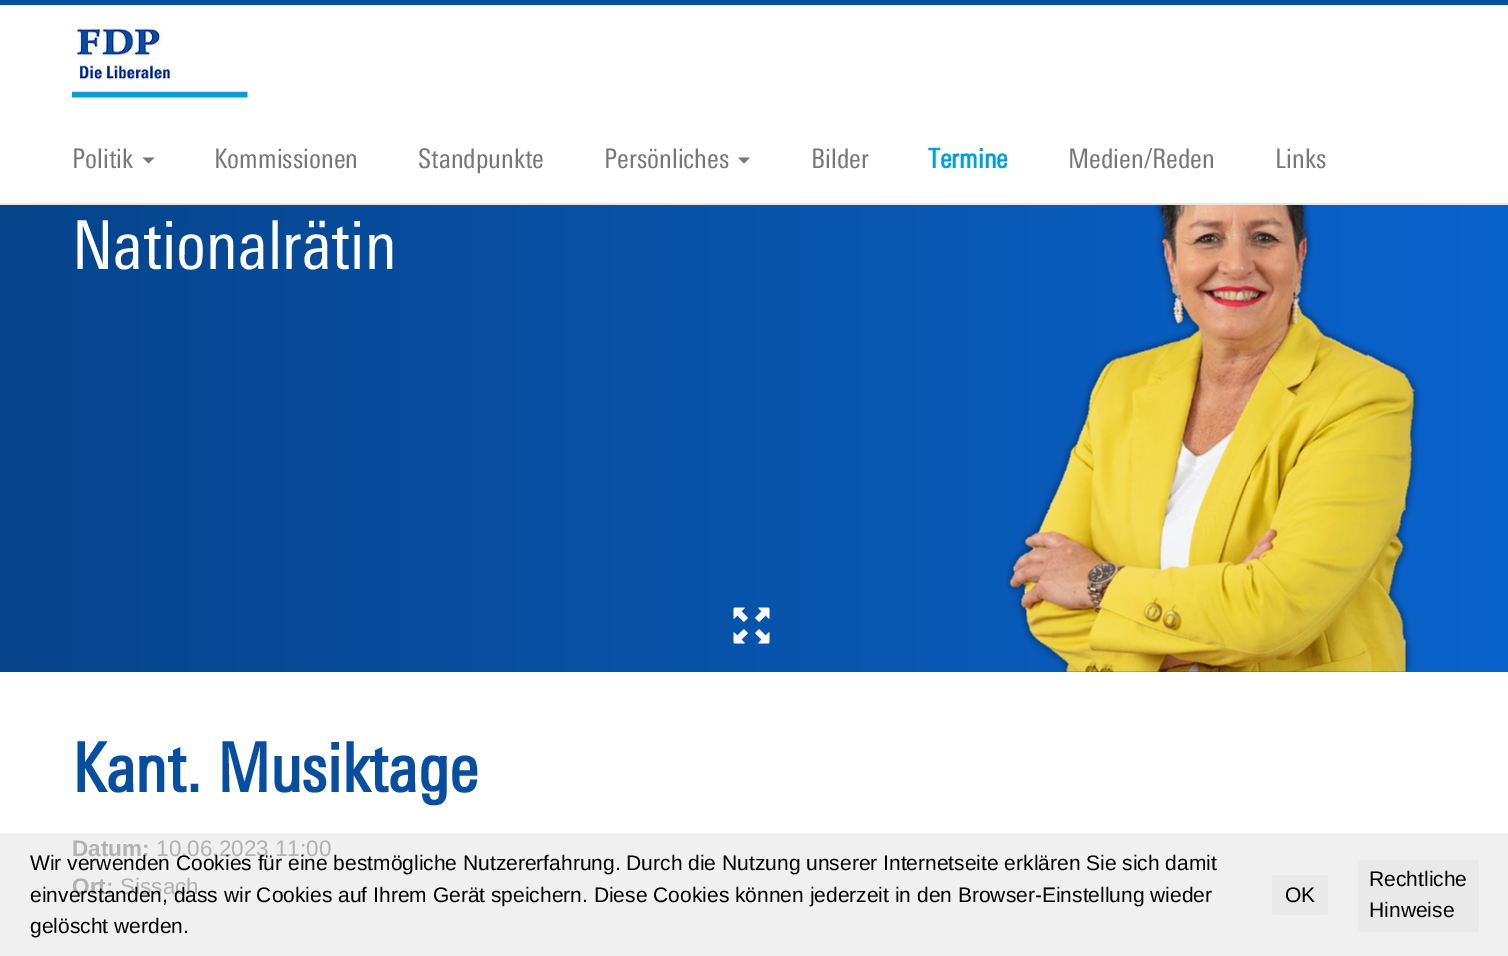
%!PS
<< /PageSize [1508 956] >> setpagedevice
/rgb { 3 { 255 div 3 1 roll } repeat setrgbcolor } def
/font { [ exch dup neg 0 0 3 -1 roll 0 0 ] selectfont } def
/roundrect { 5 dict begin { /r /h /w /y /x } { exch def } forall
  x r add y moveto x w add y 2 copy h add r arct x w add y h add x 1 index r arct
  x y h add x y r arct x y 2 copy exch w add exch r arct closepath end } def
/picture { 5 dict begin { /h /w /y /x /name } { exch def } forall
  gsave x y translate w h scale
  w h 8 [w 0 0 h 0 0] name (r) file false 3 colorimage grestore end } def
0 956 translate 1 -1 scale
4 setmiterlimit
255 255 255 rgb
0 0 1508 956 rectfill
[
  [0 833 1508 123 240 240 240]
  [0 0 1508 5 7 78 161]
  [0 203 1508 2 231 231 231]
] { aload pop rgb rectfill } forall
(img/1.rgb) 72 23 176 75 picture
119 119 119 rgb
142.5 157.5 moveto 154.5 157.5 lineto 148.5 163.5 lineto closepath fill
738 157.5 moveto 750 157.5 lineto 744 163.5 lineto closepath fill
gsave 0 205 moveto 1508 205 lineto 1508 672 lineto 0 672 lineto closepath clip newpath
<< /ShadingType 2 /ColorSpace /DeviceRGB /Coords [0 297 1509 297] /Extend [true true] /Function << /FunctionType 2 /Domain [0 1] /C0 [0.024 0.267 0.549] /C1 [0.035 0.388 0.8] /N 1 >> >> shfill grestore
(img/2.rgb) 1006 205 415 467 picture
(img/3.rgb) 733 607 37 37 picture
233 233 233 rgb
1272 875 56 40 3 roundrect fill
1358 860 121 72 3 roundrect fill
/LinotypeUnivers-Regular 27 font
119 119 119 rgb
[
  [(Politik) 72 168]
  [(Kommissionen) 214 168]
  [(Standpunkte) 418 168]
  [(Persönliches) 604 168]
  [(Bilder) 811 168]
] { aload pop moveto show } forall
/LinotypeUnivers-Bold 27 font
0 160 219 rgb
928 168 moveto (Termine) show
/LinotypeUnivers-Regular 27 font
119 119 119 rgb
1068 168 moveto (Medien/Reden) show
1275 168 moveto (Links) show
/LinotypeUnivers-Regular 67.5 font
255 255 255 rgb
72 269 moveto (Nationalrätin) show
/LinotypeUnivers-Bold 67.5 font
7 78 161 rgb
72 792 moveto (Kant. Musiktage) show
/LiberationSans-Bold 22.5 font
178 178 178 rgb
72 856 moveto (Datum:) show
/LiberationSans-Regular 22.5 font
156 856 moveto (10.06.2023 11:00) show
/LiberationSans-Bold 22.5 font
72 894 moveto (Ort:) show
/LiberationSans-Regular 22.5 font
120 894 moveto (Sissach) show
/LiberationSans-Regular 21 font
0 0 0 rgb
[
  [(Wir verwenden Cookies für eine bestmögliche Nutzererfahrung. Durch die Nutzung unserer Internetseite erklären Sie sich damit) 30 870]
  [(einverstanden, dass wir Cookies auf Ihrem Gerät speichern. Diese Cookies können jederzeit in den Browser-Einstellung wieder) 30 902]
  [(gelöscht werden.) 30 933]
  [(OK) 1285 902]
  [(Rechtliche) 1369 886]
  [(Hinweise) 1369 917]
] { aload pop moveto show } forall
showpage
